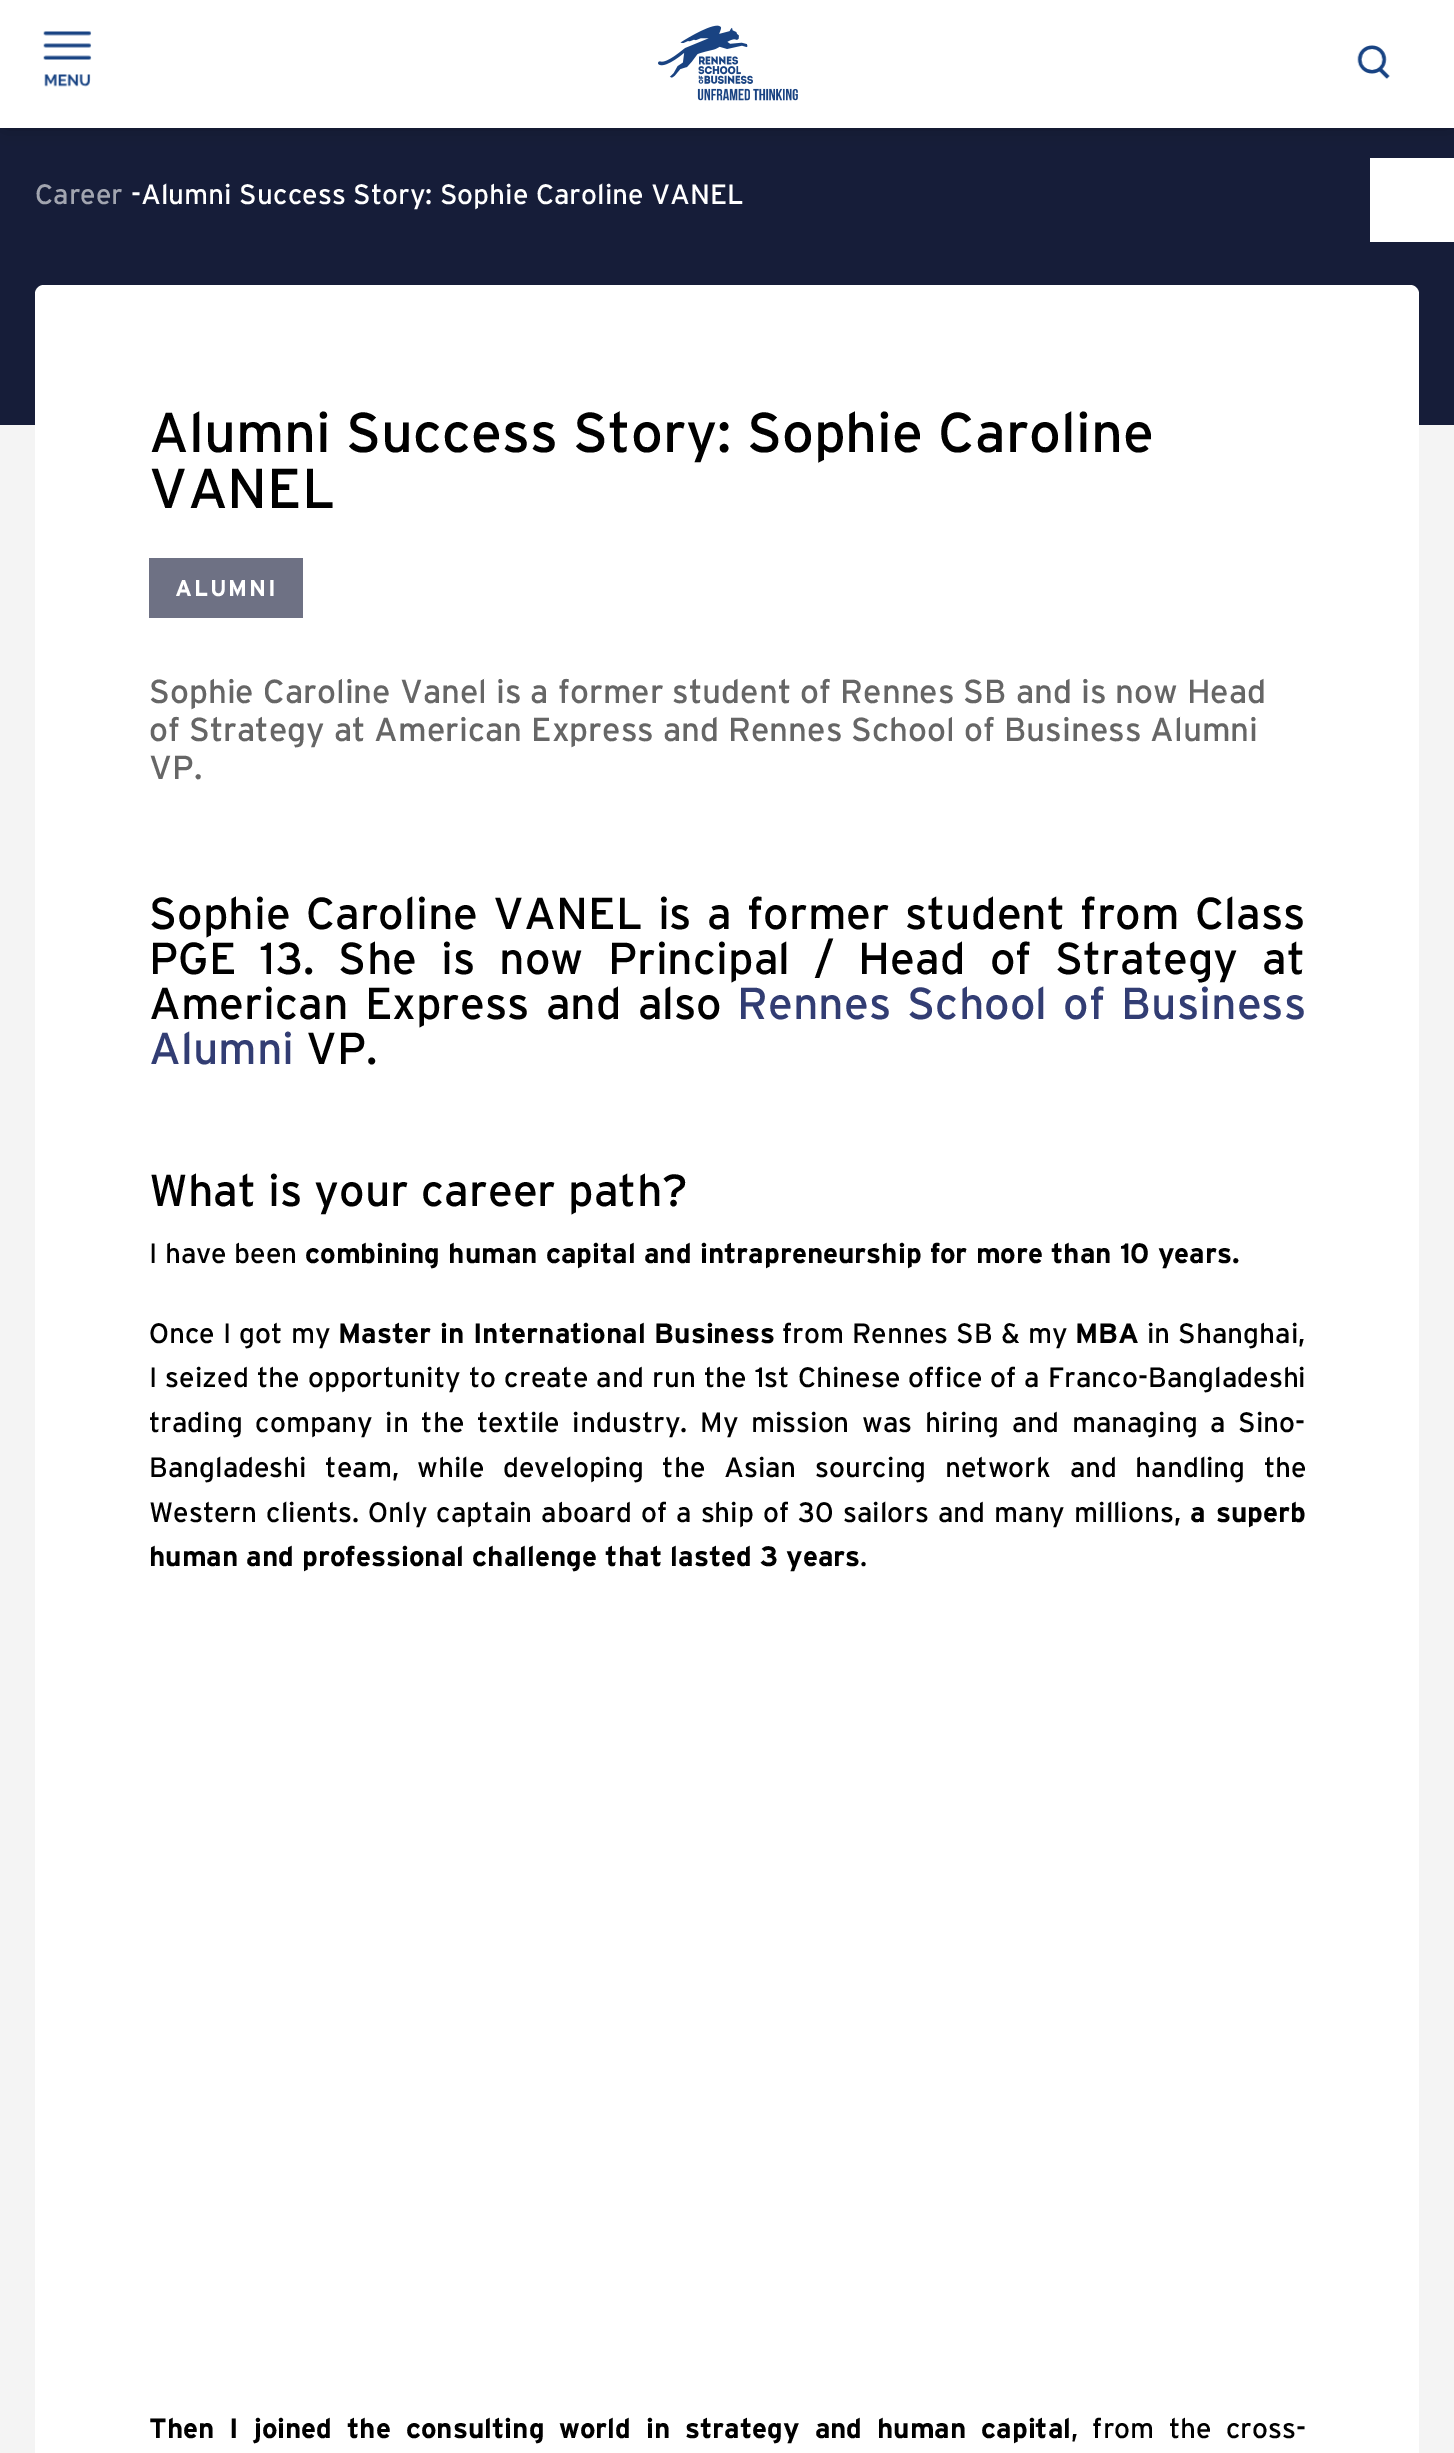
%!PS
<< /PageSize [1454 2453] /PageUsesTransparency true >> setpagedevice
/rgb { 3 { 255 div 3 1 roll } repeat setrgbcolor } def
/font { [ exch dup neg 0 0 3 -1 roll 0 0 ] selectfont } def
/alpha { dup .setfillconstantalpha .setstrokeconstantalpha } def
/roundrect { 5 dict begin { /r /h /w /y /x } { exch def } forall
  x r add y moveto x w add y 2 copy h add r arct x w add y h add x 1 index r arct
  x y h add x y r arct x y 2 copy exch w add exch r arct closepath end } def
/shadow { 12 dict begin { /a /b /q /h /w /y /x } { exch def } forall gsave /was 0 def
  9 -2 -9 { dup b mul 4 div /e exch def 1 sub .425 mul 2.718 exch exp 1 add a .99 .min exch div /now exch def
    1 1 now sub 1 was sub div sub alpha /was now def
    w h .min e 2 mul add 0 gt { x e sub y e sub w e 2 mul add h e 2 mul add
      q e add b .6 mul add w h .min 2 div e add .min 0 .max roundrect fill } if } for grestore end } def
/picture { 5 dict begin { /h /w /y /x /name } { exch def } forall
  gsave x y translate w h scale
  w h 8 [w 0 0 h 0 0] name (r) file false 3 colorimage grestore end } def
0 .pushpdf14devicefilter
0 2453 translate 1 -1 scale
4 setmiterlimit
244 244 244 rgb
0 0 1454 2453 rectfill
22 29 57 rgb
0 128 1454 297 rectfill
0 0 0 rgb
5 5 1444 118 0 10.5 0.4 shadow
255 255 255 rgb
0 0 1454 128 rectfill
(img/1.rgb) 43 31 49 56 picture
(img/2.rgb) 658 25 140 76 picture
(img/3.rgb) 1357 45 33 34 picture
35 285 1384 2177 9 roundrect fill
110 113 132 rgb
149 558 154 60 rectfill
255 255 255 rgb
1370 158 84 84 rectfill
/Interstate-Regular 28 font
162 165 176 rgb
35 204 moveto (Career) show
255 255 255 rgb
131 204 moveto (-Alumni Success Story: Sophie Caroline VANEL) show
/Interstate-Regular 56 font
0 0 0 rgb
149 452 moveto (Alumni Success Story: Sophie Caroline) show
149 508 moveto (VANEL) show
/Interstate-Bold 22.75 font
255 255 255 rgb
175 596 moveto 1.75 0 (ALUMNI) ashow
/Interstate-Regular 33.25 font
102 102 102 rgb
[
  [(Sophie Caroline Vanel is a former student of Rennes SB and is now Head) 149 703]
  [(of Strategy at American Express and Rennes School of Business Alumni) 149 741]
  [(VP.) 149 779]
] { aload pop moveto show } forall
/Interstate-Regular 44.8 font
0 0 0 rgb
149 929 moveto 3.25 0 32 (Sophie Caroline VANEL is a former student from Class) widthshow
149 974 moveto 12 0 32 (PGE 13. She is now Principal / Head of Strategy at) widthshow
149 1019 moveto 4 0 32 (American Express and also) widthshow
50 61 115 rgb
737 1019 moveto 4 0 32 (Rennes School of Business) widthshow
149 1064 moveto (Alumni) show
0 0 0 rgb
306 1064 moveto (VP.) show
149 1206 moveto (What is your career path?) show
/Interstate-Regular 28 font
149 1263 moveto (I have been) show
/Interstate-Bold 28 font
305 1263 moveto (combining human capital and intrapreneurship for more than 10 years.) show
/Interstate-Regular 28 font
149 1343 moveto 0.5 0 32 (Once I got my) widthshow
/Interstate-Bold 28 font
338 1343 moveto 0.5 0 32 (Master in International Business) widthshow
/Interstate-Regular 28 font
782 1343 moveto 0.5 0 32 (from Rennes SB & my) widthshow
/Interstate-Bold 28 font
1075 1343 moveto (MBA) show
/Interstate-Regular 28 font
1147 1343 moveto 0.5 0 32 (in Shanghai,) widthshow
149 1387 moveto 0.6 0 32 (I seized the opportunity to create and run the 1st Chinese office of a Franco-Bangladeshi) widthshow
149 1432 moveto 5 0 32 (trading company in the textile industry. My mission was hiring and managing a Sino-) widthshow
149 1477 moveto 11 0 32 (Bangladeshi team, while developing the Asian sourcing network and handling the) widthshow
149 1522 moveto 1.5 0 32 (Western clients. Only captain aboard of a ship of 30 sailors and many millions,) widthshow
/Interstate-Bold 28 font
1190 1522 moveto 2 0 32 (a superb) widthshow
149 1566 moveto (human and professional challenge that lasted 3 years) show
/Interstate-Regular 28 font
860 1566 moveto (.) show
/Interstate-Bold 28 font
149 2438 moveto 6.75 0 32 (Then I joined the consulting world in strategy and human capital) widthshow
/Interstate-Regular 28 font
1071 2438 moveto 6.75 0 32 (, from the cross-) widthshow
.poppdf14devicefilter showpage
